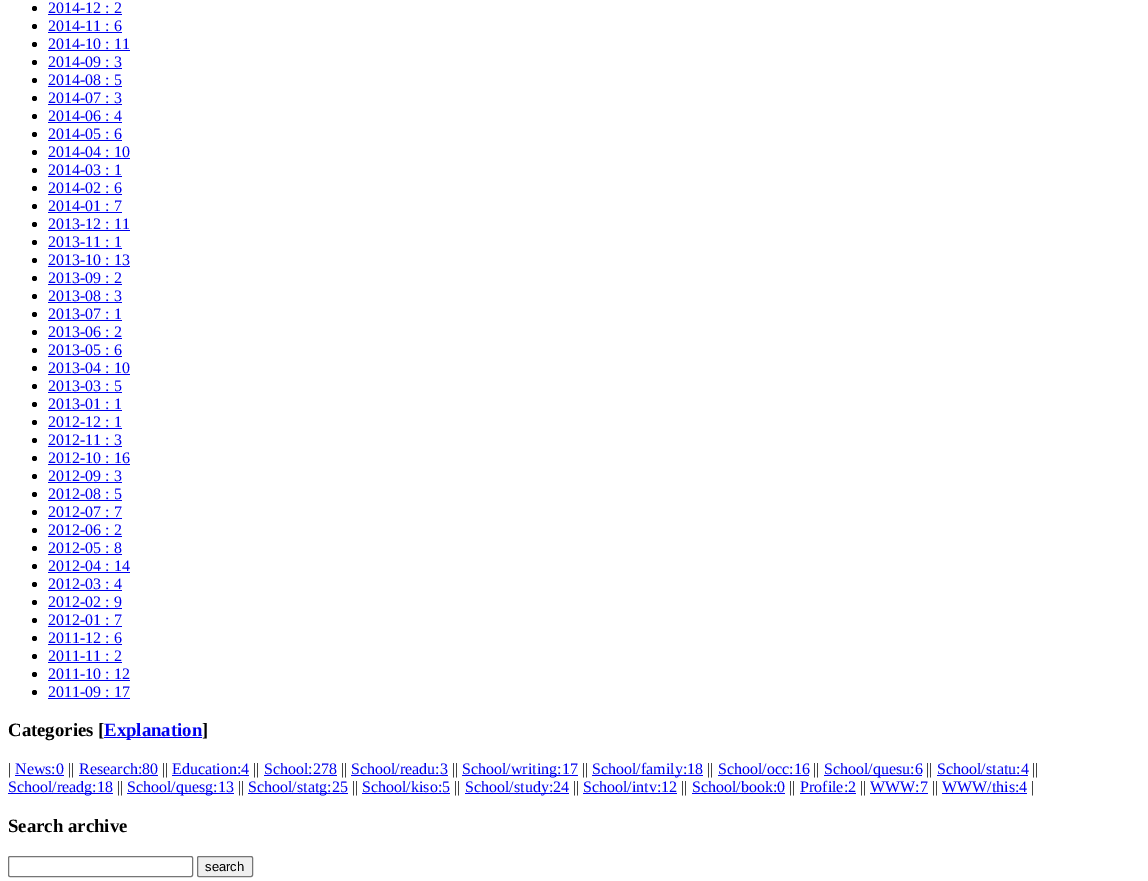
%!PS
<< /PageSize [1148 881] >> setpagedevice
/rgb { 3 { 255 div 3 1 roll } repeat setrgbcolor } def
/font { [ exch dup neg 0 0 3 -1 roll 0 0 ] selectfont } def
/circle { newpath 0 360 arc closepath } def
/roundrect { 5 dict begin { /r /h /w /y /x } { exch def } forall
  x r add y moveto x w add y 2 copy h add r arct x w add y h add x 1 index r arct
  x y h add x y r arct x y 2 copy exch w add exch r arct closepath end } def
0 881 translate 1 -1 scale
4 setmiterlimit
255 255 255 rgb
0 0 1148 881 rectfill
0 0 0 rgb
34.5 8.5 2.5 circle fill
0 0 238 rgb
48 14 74 1 rectfill
0 0 0 rgb
34.5 26.5 2.5 circle fill
0 0 238 rgb
48 32 74 1 rectfill
0 0 0 rgb
34.5 44.5 2.5 circle fill
0 0 238 rgb
48 50 82 1 rectfill
0 0 0 rgb
34.5 62.5 2.5 circle fill
0 0 238 rgb
48 68 74 1 rectfill
0 0 0 rgb
34.5 80.5 2.5 circle fill
0 0 238 rgb
48 86 74 1 rectfill
0 0 0 rgb
34.5 98.5 2.5 circle fill
0 0 238 rgb
48 104 74 1 rectfill
0 0 0 rgb
34.5 116.5 2.5 circle fill
0 0 238 rgb
48 122 74 1 rectfill
0 0 0 rgb
34.5 134.5 2.5 circle fill
0 0 238 rgb
48 140 74 1 rectfill
0 0 0 rgb
34.5 152.5 2.5 circle fill
0 0 238 rgb
48 158 82 1 rectfill
0 0 0 rgb
34.5 170.5 2.5 circle fill
0 0 238 rgb
48 176 74 1 rectfill
0 0 0 rgb
34.5 188.5 2.5 circle fill
0 0 238 rgb
48 194 74 1 rectfill
0 0 0 rgb
34.5 206.5 2.5 circle fill
0 0 238 rgb
48 212 74 1 rectfill
0 0 0 rgb
34.5 224.5 2.5 circle fill
0 0 238 rgb
48 230 82 1 rectfill
0 0 0 rgb
34.5 242.5 2.5 circle fill
0 0 238 rgb
48 248 74 1 rectfill
0 0 0 rgb
34.5 260.5 2.5 circle fill
0 0 238 rgb
48 266 82 1 rectfill
0 0 0 rgb
34.5 278.5 2.5 circle fill
0 0 238 rgb
48 284 74 1 rectfill
0 0 0 rgb
34.5 296.5 2.5 circle fill
0 0 238 rgb
48 302 74 1 rectfill
0 0 0 rgb
34.5 314.5 2.5 circle fill
0 0 238 rgb
48 320 74 1 rectfill
0 0 0 rgb
34.5 332.5 2.5 circle fill
0 0 238 rgb
48 338 74 1 rectfill
0 0 0 rgb
34.5 350.5 2.5 circle fill
0 0 238 rgb
48 356 74 1 rectfill
0 0 0 rgb
34.5 368.5 2.5 circle fill
0 0 238 rgb
48 374 82 1 rectfill
0 0 0 rgb
34.5 386.5 2.5 circle fill
0 0 238 rgb
48 392 74 1 rectfill
0 0 0 rgb
34.5 404.5 2.5 circle fill
0 0 238 rgb
48 410 74 1 rectfill
0 0 0 rgb
34.5 422.5 2.5 circle fill
0 0 238 rgb
48 428 74 1 rectfill
0 0 0 rgb
34.5 440.5 2.5 circle fill
0 0 238 rgb
48 446 74 1 rectfill
0 0 0 rgb
34.5 458.5 2.5 circle fill
0 0 238 rgb
48 464 82 1 rectfill
0 0 0 rgb
34.5 476.5 2.5 circle fill
0 0 238 rgb
48 482 74 1 rectfill
0 0 0 rgb
34.5 494.5 2.5 circle fill
0 0 238 rgb
48 500 74 1 rectfill
0 0 0 rgb
34.5 512.5 2.5 circle fill
0 0 238 rgb
48 518 74 1 rectfill
0 0 0 rgb
34.5 530.5 2.5 circle fill
0 0 238 rgb
48 536 74 1 rectfill
0 0 0 rgb
34.5 548.5 2.5 circle fill
0 0 238 rgb
48 554 74 1 rectfill
0 0 0 rgb
34.5 566.5 2.5 circle fill
0 0 238 rgb
48 572 82 1 rectfill
0 0 0 rgb
34.5 584.5 2.5 circle fill
0 0 238 rgb
48 590 74 1 rectfill
0 0 0 rgb
34.5 602.5 2.5 circle fill
0 0 238 rgb
48 608 74 1 rectfill
0 0 0 rgb
34.5 620.5 2.5 circle fill
0 0 238 rgb
48 626 74 1 rectfill
0 0 0 rgb
34.5 638.5 2.5 circle fill
0 0 238 rgb
48 644 74 1 rectfill
0 0 0 rgb
34.5 656.5 2.5 circle fill
0 0 238 rgb
48 662 74 1 rectfill
0 0 0 rgb
34.5 674.5 2.5 circle fill
0 0 238 rgb
48 680 82 1 rectfill
0 0 0 rgb
34.5 692.5 2.5 circle fill
[
  [48 698 82 1 0 0 238]
  [104 737 98 1 0 0 238]
  [15 775 49 1 0 0 238]
  [79 775 79 1 0 0 238]
  [172 775 77 1 0 0 238]
  [264 775 73 1 0 0 238]
  [351 775 97 1 0 0 238]
  [462 775 116 1 0 0 238]
  [592 775 111 1 0 0 238]
  [718 775 91 1 0 0 238]
  [824 775 98 1 0 0 238]
  [937 775 91 1 0 0 238]
  [8 793 105 1 0 0 238]
  [127 793 107 1 0 0 238]
  [248 793 100 1 0 0 238]
  [362 793 88 1 0 0 238]
  [465 793 104 1 0 0 238]
  [583 793 94 1 0 0 238]
  [692 793 93 1 0 0 238]
  [800 793 56 1 0 0 238]
  [870 793 58 1 0 0 238]
  [942 793 85 1 0 0 238]
] { aload pop rgb rectfill } forall
118 118 118 rgb
8.5 856.5 184 20 1.5 roundrect stroke
239 239 239 rgb
197.5 856.5 55 20 1.5 roundrect gsave fill grestore
118 118 118 rgb
stroke
/LiberationSerif-Regular 16 font
0 0 238 rgb
[
  [(2014-12 : 2) 48 13]
  [(2014-11 : 6) 48 31]
  [(2014-10 : 11) 48 49]
  [(2014-09 : 3) 48 67]
  [(2014-08 : 5) 48 85]
  [(2014-07 : 3) 48 103]
  [(2014-06 : 4) 48 121]
  [(2014-05 : 6) 48 139]
  [(2014-04 : 10) 48 157]
  [(2014-03 : 1) 48 175]
  [(2014-02 : 6) 48 193]
  [(2014-01 : 7) 48 211]
  [(2013-12 : 11) 48 229]
  [(2013-11 : 1) 48 247]
  [(2013-10 : 13) 48 265]
  [(2013-09 : 2) 48 283]
  [(2013-08 : 3) 48 301]
  [(2013-07 : 1) 48 319]
  [(2013-06 : 2) 48 337]
  [(2013-05 : 6) 48 355]
  [(2013-04 : 10) 48 373]
  [(2013-03 : 5) 48 391]
  [(2013-01 : 1) 48 409]
  [(2012-12 : 1) 48 427]
  [(2012-11 : 3) 48 445]
  [(2012-10 : 16) 48 463]
  [(2012-09 : 3) 48 481]
  [(2012-08 : 5) 48 499]
  [(2012-07 : 7) 48 517]
  [(2012-06 : 2) 48 535]
  [(2012-05 : 8) 48 553]
  [(2012-04 : 14) 48 571]
  [(2012-03 : 4) 48 589]
  [(2012-02 : 9) 48 607]
  [(2012-01 : 7) 48 625]
  [(2011-12 : 6) 48 643]
  [(2011-11 : 2) 48 661]
  [(2011-10 : 12) 48 679]
  [(2011-09 : 17) 48 697]
] { aload pop moveto show } forall
/LiberationSerif-Bold 18.75 font
0 0 0 rgb
8 736 moveto (Categories [) show
0 0 238 rgb
104 736 moveto (Explanation) show
0 0 0 rgb
202 736 moveto (]) show
/LiberationSerif-Regular 16 font
8 774 moveto (|) show
0 0 238 rgb
15 774 moveto (News:0) show
0 0 0 rgb
68 774 moveto (||) show
0 0 238 rgb
79 774 moveto (Research:80) show
0 0 0 rgb
162 774 moveto (||) show
0 0 238 rgb
172 774 moveto (Education:4) show
0 0 0 rgb
253 774 moveto (||) show
0 0 238 rgb
264 774 moveto (School:278) show
0 0 0 rgb
341 774 moveto (||) show
0 0 238 rgb
351 774 moveto (School/readu:3) show
0 0 0 rgb
452 774 moveto (||) show
0 0 238 rgb
462 774 moveto (School/writing:17) show
0 0 0 rgb
582 774 moveto (||) show
0 0 238 rgb
592 774 moveto (School/family:18) show
0 0 0 rgb
707 774 moveto (||) show
0 0 238 rgb
718 774 moveto (School/occ:16) show
0 0 0 rgb
813 774 moveto (||) show
0 0 238 rgb
824 774 moveto (School/quesu:6) show
0 0 0 rgb
926 774 moveto (||) show
0 0 238 rgb
937 774 moveto (School/statu:4) show
0 0 0 rgb
1032 774 moveto (||) show
0 0 238 rgb
8 792 moveto (School/readg:18) show
0 0 0 rgb
117 792 moveto (||) show
0 0 238 rgb
127 792 moveto (School/quesg:13) show
0 0 0 rgb
238 792 moveto (||) show
0 0 238 rgb
248 792 moveto (School/statg:25) show
0 0 0 rgb
352 792 moveto (||) show
0 0 238 rgb
362 792 moveto (School/kiso:5) show
0 0 0 rgb
454 792 moveto (||) show
0 0 238 rgb
465 792 moveto (School/study:24) show
0 0 0 rgb
573 792 moveto (||) show
0 0 238 rgb
583 792 moveto (School/intv:12) show
0 0 0 rgb
681 792 moveto (||) show
0 0 238 rgb
692 792 moveto (School/book:0) show
0 0 0 rgb
789 792 moveto (||) show
0 0 238 rgb
800 792 moveto (Profile:2) show
0 0 0 rgb
860 792 moveto (||) show
0 0 238 rgb
870 792 moveto (WWW:7) show
0 0 0 rgb
932 792 moveto (||) show
0 0 238 rgb
942 792 moveto (WWW/this:4) show
0 0 0 rgb
1031 792 moveto (|) show
/LiberationSerif-Bold 18.75 font
8 832 moveto (Search archive) show
/LiberationSans-Regular 13 font
205 871 moveto (search) show
showpage
